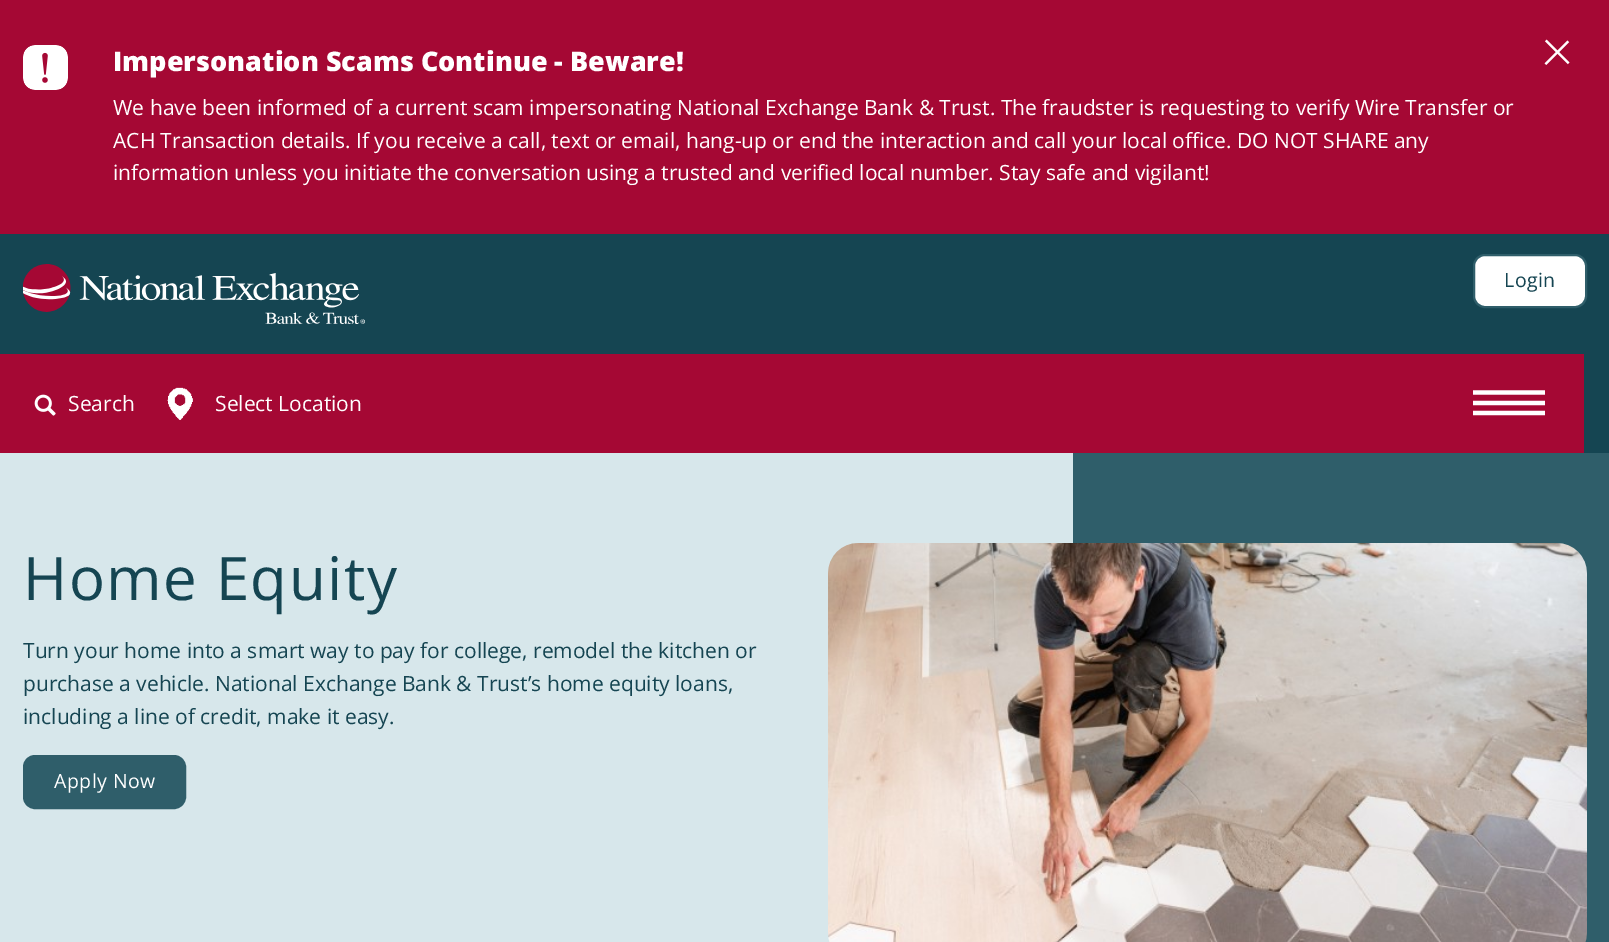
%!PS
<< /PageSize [1609 942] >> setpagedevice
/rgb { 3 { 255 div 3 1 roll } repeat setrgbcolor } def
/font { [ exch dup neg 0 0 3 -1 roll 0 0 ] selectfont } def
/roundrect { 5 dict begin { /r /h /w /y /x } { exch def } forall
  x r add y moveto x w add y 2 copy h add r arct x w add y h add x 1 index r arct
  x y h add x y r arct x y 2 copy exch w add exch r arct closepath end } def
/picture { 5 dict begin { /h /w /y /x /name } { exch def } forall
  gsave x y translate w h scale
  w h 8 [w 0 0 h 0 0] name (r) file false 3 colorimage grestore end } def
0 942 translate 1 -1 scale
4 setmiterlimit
215 231 235 rgb
0 0 1609 942 rectfill
165 8 52 rgb
0 0 1609 234 rectfill
(img/1.rgb) 23 45 45 45 picture
(img/2.rgb) 1544 39 26 26 picture
21 69 82 rgb
0 234 1609 219 rectfill
(img/3.rgb) 23 264 342 60 picture
255 255 255 rgb
1474 255 112 52 11 roundrect gsave fill grestore
47 94 106 rgb
2 setlinewidth
stroke
165 8 52 rgb
0 354 1584 99 rectfill
(img/4.rgb) 34 394 22 22 picture
(img/5.rgb) 167 387 26 33 picture
255 255 255 rgb
4.3 setlinewidth
1473 413 moveto 1545 413 lineto 1473 403 moveto 1545 403 lineto 1473 392.5 moveto 1545 392.5 lineto stroke
47 94 106 rgb
1073 453 536 489 rectfill
24 756 161 52 11 roundrect gsave fill grestore
2 setlinewidth
stroke
(img/6.rgb) 828 543 759 399 picture
/OpenSans-ExtraBold 27 font
255 255 255 rgb
113 71 moveto (Impersonation Scams Continue - Beware!) show
/OpenSans-Regular 21 font
[
  [(We have been informed of a current scam impersonating National Exchange Bank & Trust. The fraudster is requesting to verify Wire Transfer or) 113 115]
  [(ACH Transaction details. If you receive a call, text or email, hang-up or end the interaction and call your local office. DO NOT SHARE any) 113 148]
  [(information unless you initiate the conversation using a trusted and verified local number. Stay safe and vigilant!) 113 180]
] { aload pop moveto show } forall
/OpenSans-Regular 19.5 font
21 69 82 rgb
1504 287 moveto 0.5 0 (Login) ashow
/OpenSans-Regular 21 font
255 255 255 rgb
68 411 moveto (Search) show
215 411 moveto (Select Location) show
/OpenSans-Regular 60 font
21 69 82 rgb
23 600 moveto 1.5 0 (Home Equity) ashow
/OpenSans-Regular 21 font
[
  [(Turn your home into a smart way to pay for college, remodel the kitchen or) 23 658]
  [(purchase a vehicle. National Exchange Bank & Trust’s home equity loans,) 23 691]
  [(including a line of credit, make it easy.) 23 724]
] { aload pop moveto show } forall
/OpenSans-Regular 19.5 font
255 255 255 rgb
54 788 moveto 0.5 0 (Apply Now) ashow
showpage
